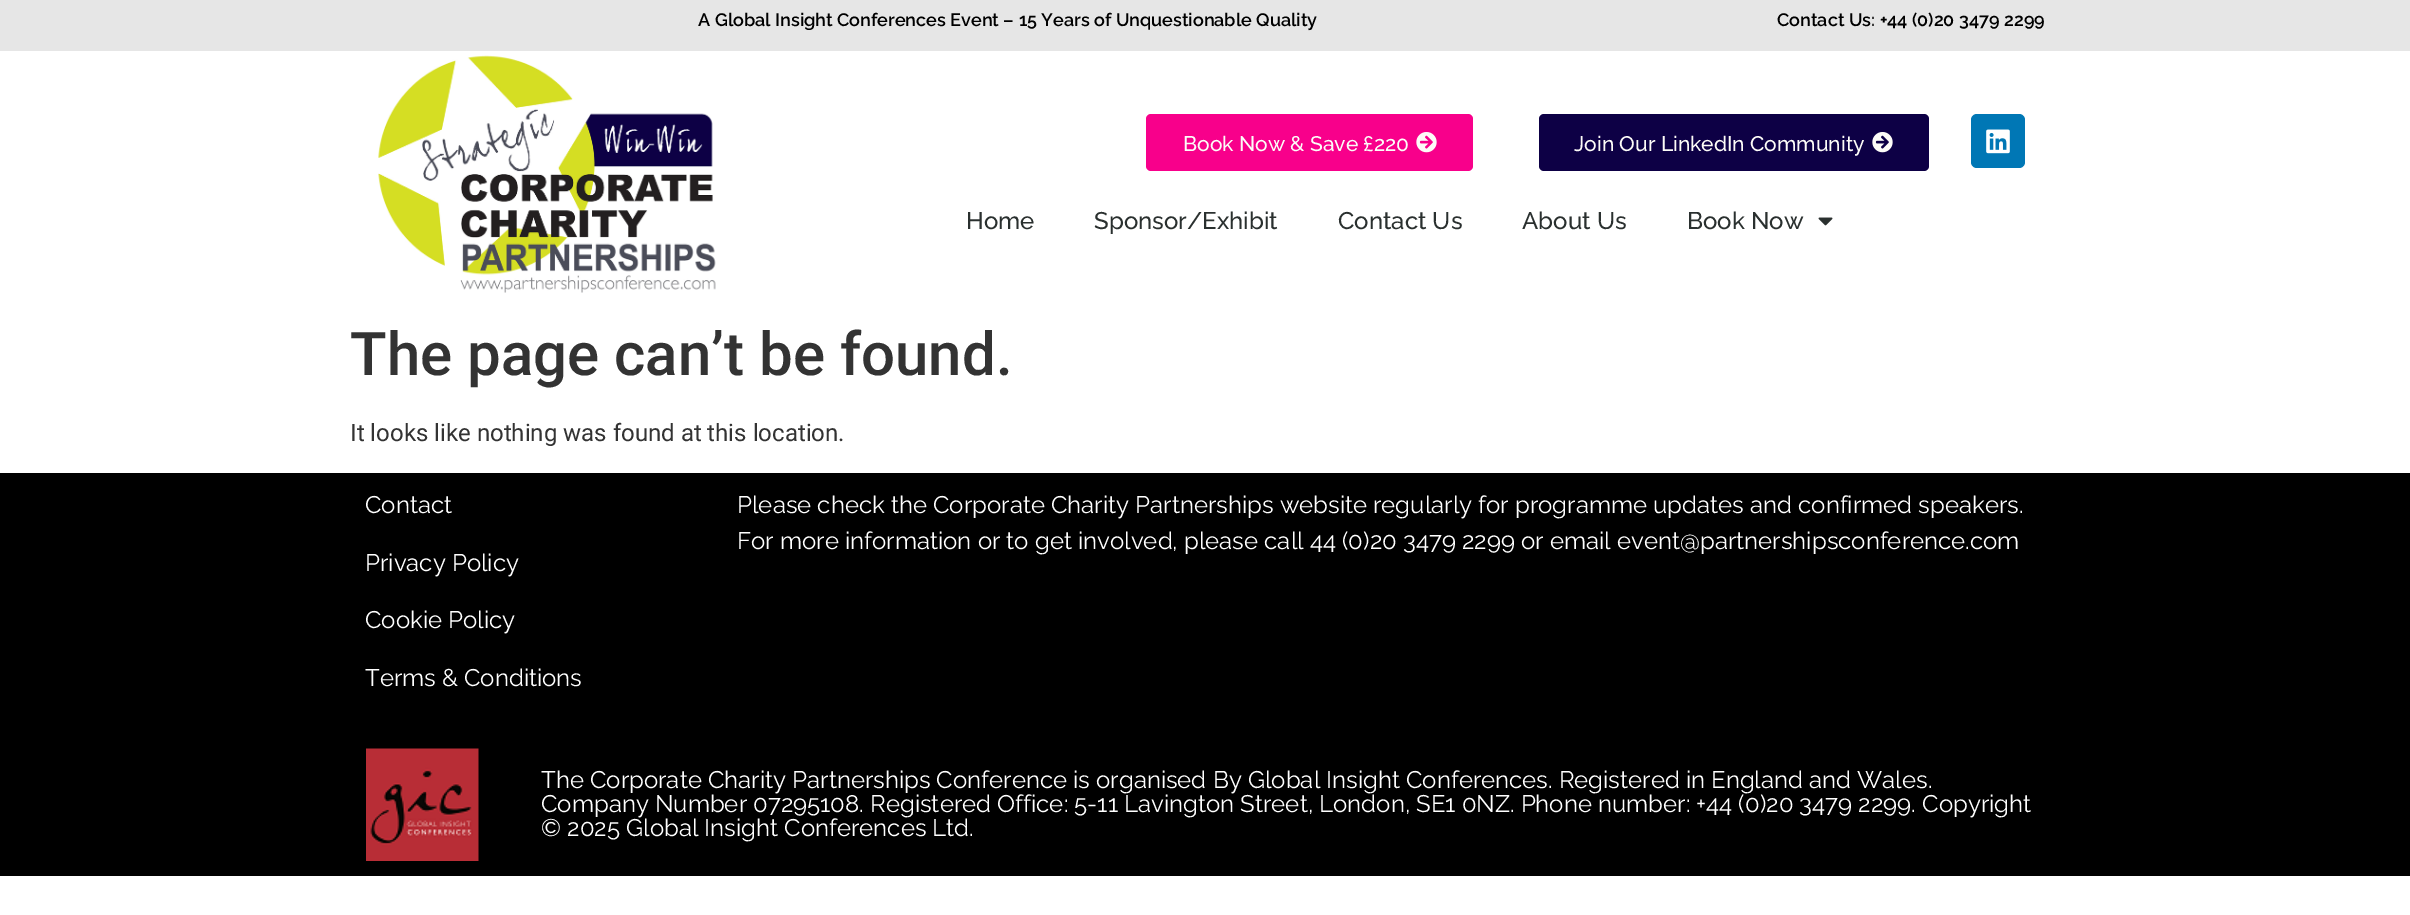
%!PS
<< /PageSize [2410 915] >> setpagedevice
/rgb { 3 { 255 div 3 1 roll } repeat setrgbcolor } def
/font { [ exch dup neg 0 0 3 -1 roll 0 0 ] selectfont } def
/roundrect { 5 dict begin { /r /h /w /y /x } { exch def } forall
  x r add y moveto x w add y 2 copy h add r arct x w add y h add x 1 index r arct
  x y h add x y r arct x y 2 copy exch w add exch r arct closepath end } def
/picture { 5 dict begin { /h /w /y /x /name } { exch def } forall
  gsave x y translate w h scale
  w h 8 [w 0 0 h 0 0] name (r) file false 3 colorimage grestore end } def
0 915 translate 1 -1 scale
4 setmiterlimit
255 255 255 rgb
0 0 2410 915 rectfill
230 230 230 rgb
0 0 2410 51 rectfill
(img/1.rgb) 378 55 338 238 picture
248 0 139 rgb
1146 114 327 57 5 roundrect fill
(img/2.rgb) 1416 132 21 21 picture
13 0 69 rgb
1539 114 390 57 5 roundrect fill
(img/3.rgb) 1872 132 21 21 picture
0 119 181 rgb
1971 114 54 54 6 roundrect fill
(img/4.rgb) 1986 129 24 25 picture
(img/5.rgb) 1818 217 15 9 picture
0 0 0 rgb
0 473 2410 403 rectfill
(img/6.rgb) 366 748 113 113 picture
/Raleway-SemiBold 18 font
698 26 moveto (A Global Insight Conferences Event – 15 Years of Unquestionable Quality) show
1777 26 moveto (Contact Us: +44 \(0\)20 3479 2299) show
/Raleway-Medium 21 font
253 252 248 rgb
1183 151 moveto (Book Now & Save £220) show
1574 151 moveto (Join Our LinkedIn Community) show
/Raleway-Medium 24 font
42 48 47 rgb
[
  [(Home) 966 229]
  [(Sponsor/Exhibit) 1094 229]
  [(Contact Us) 1338 229]
  [(About Us) 1522 229]
  [(Book Now) 1687 229]
] { aload pop moveto show } forall
/Roboto-Medium 60 font
51 51 51 rgb
350 375 moveto (The page can’t be found.) show
/Roboto-Regular 24 font
350 441 moveto (It looks like nothing was found at this location.) show
/Raleway-Regular 24 font
255 255 255 rgb
[
  [(Contact) 365 513]
  [(Privacy Policy) 365 571]
  [(Cookie Policy) 365 628]
  [(Terms & Conditions) 365 686]
  [(Please check the Corporate Charity Partnerships website regularly for programme updates and confirmed speakers.) 737 513]
  [(For more information or to get involved, please call 44 \(0\)20 3479 2299 or email event@partnershipsconference.com) 737 549]
  [(The Corporate Charity Partnerships Conference is organised By Global Insight Conferences. Registered in England and Wales.) 541 788]
  [(Company Number 07295108. Registered Office: 5-11 Lavington Street, London, SE1 0NZ. Phone number: +44 \(0\)20 3479 2299. Copyright) 541 812]
  [(© 2025 Global Insight Conferences Ltd.) 541 836]
] { aload pop moveto show } forall
showpage
